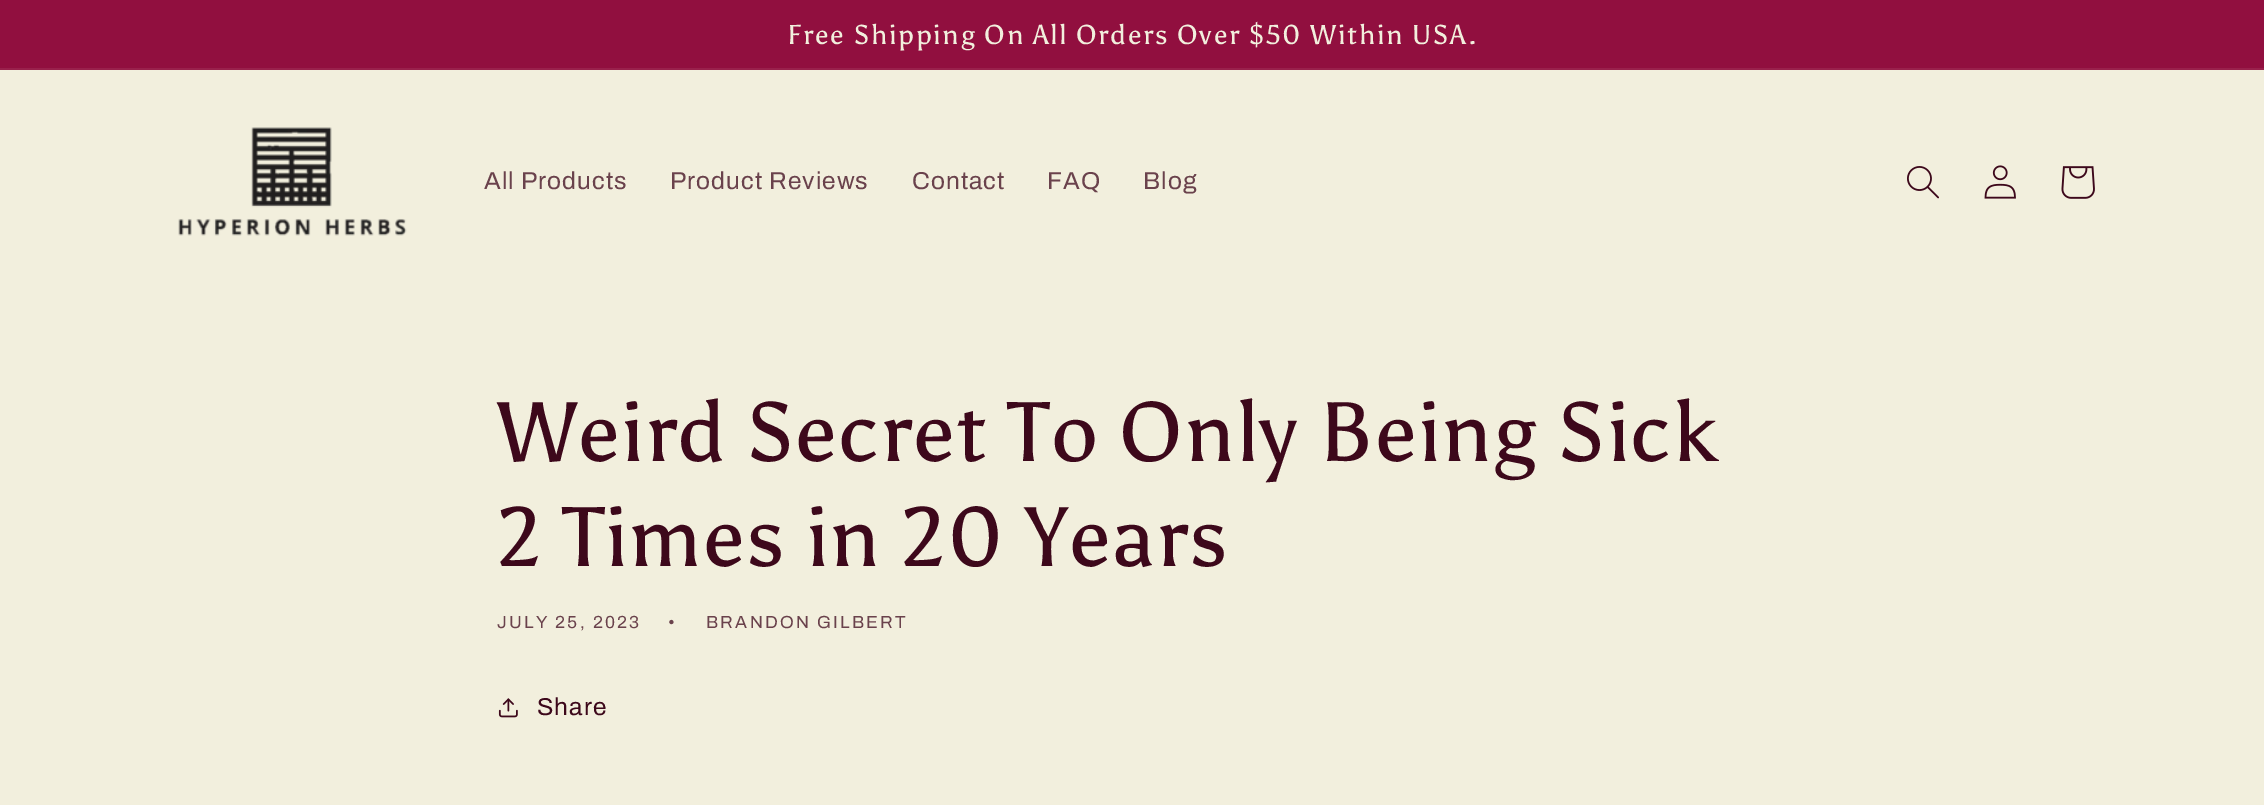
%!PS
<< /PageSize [2264 805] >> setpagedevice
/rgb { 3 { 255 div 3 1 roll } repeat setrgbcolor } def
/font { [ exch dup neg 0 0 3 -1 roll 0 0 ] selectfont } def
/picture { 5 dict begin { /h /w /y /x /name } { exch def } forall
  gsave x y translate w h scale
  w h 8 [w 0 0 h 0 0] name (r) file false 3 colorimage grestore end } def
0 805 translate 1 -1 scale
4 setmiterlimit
242 239 221 rgb
0 0 2264 805 rectfill
145 15 63 rgb
0 0 2264 68 rectfill
153 33 76 rgb
0 68 2264 2 rectfill
(img/1.rgb) 178 127 229 109 picture
(img/2.rgb) 1907 166 32 33 picture
(img/3.rgb) 1984 165 32 34 picture
(img/4.rgb) 2061 166 34 33 picture
(img/5.rgb) 498 698 20 20 picture
/Asul-Regular 27.3 font
242 239 221 rgb
787 44 moveto 1.75 0 (Free Shipping On All Orders Over $50 Within USA.) ashow
/Archivo-Regular 24.5 font
106 66 76 rgb
484 189 moveto 1 0 (All Products) ashow
670 189 moveto 1 0 (Product Reviews) ashow
912 189 moveto 1 0 (Contact) ashow
1047 189 moveto 1 0 (FAQ) ashow
1143 189 moveto 1 0 (Blog) ashow
/Asul-Regular 84 font
61 8 27 rgb
497 461 moveto 1.25 0 (Weird Secret To Only Being Sick) ashow
497 566 moveto 1.25 0 (2 Times in 20 Years) ashow
/Archivo-Regular 17.5 font
106 66 76 rgb
497 628 moveto 2.25 0 (JULY 25, 2023) ashow
668 628 moveto 2.25 0 (•) ashow
706 628 moveto 2.25 0 (BRANDON GILBERT) ashow
/Archivo-Regular 24.5 font
61 8 27 rgb
537 715 moveto 1 0 (Share) ashow
showpage
